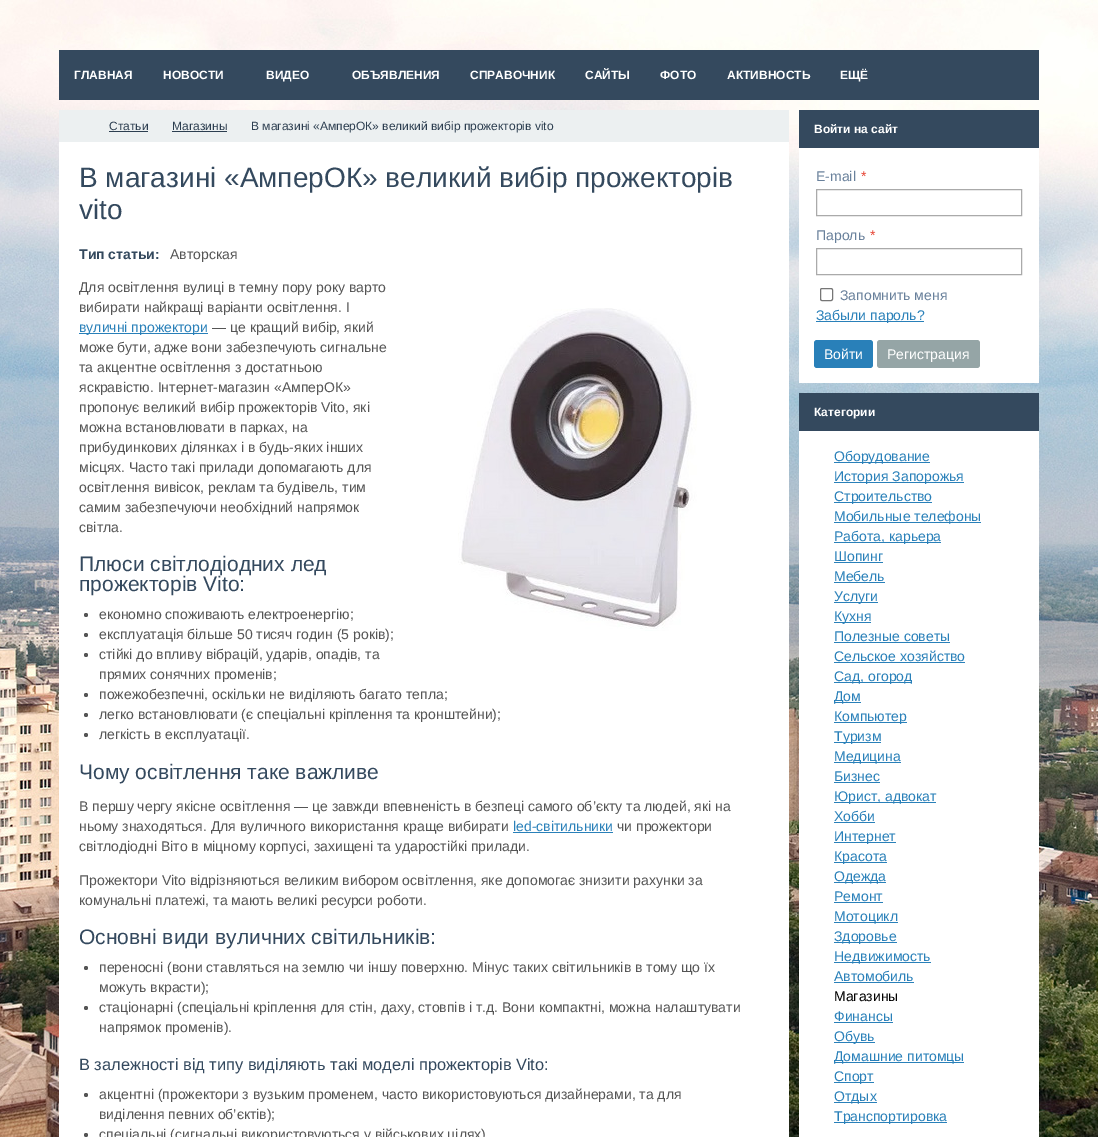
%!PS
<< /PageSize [1098 1137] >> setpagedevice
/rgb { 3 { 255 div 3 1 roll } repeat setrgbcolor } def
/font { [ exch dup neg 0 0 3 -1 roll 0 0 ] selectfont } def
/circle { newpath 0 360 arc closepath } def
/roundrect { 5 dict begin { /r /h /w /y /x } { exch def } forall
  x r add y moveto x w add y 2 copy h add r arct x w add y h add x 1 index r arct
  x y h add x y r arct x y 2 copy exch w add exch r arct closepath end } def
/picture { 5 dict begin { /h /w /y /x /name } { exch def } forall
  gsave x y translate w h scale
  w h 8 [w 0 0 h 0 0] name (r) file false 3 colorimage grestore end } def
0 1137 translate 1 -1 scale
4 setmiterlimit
255 255 255 rgb
0 0 1098 1137 rectfill
(img/1.rgb) 0 0 1098 1137 picture
[
  [59 50 980 50 52 73 94]
  [59 142 730 995 255 255 255]
  [59 110 730 32 236 240 241]
  [109 131 39 1 44 62 80]
  [172 131 55 1 44 62 80]
] { aload pop rgb rectfill } forall
(img/2.rgb) 458 308 239 323 picture
41 128 185 rgb
79 333 129 1 rectfill
85 85 85 rgb
86 615 2 circle fill
86 635 2 circle fill
86 655 2 circle fill
86 695 2 circle fill
86 715 2 circle fill
86 735 2 circle fill
41 128 185 rgb
513 832 100 1 rectfill
85 85 85 rgb
86 968 2 circle fill
86 1008 2 circle fill
86 1095 2 circle fill
86 1135 2 circle fill
255 255 255 rgb
799 148 240 235 rectfill
52 73 94 rgb
799 110 240 38 rectfill
170 170 170 rgb
816.5 189.5 205 26 rectstroke
816.5 248.5 205 26 rectstroke
118 118 118 rgb
820.5 288.5 12 12 1.5 roundrect stroke
41 128 185 rgb
816 321 108 1 rectfill
814 340 59 28 3 roundrect fill
149 165 166 rgb
877 340 103 28 3 roundrect fill
[
  [799 431 240 706 255 255 255]
  [799 393 240 38 52 73 94]
  [834 462 96 1 41 128 185]
  [834 482 130 1 41 128 185]
  [834 502 98 1 41 128 185]
  [834 522 147 1 41 128 185]
  [834 542 107 1 41 128 185]
  [834 562 49 1 41 128 185]
  [834 582 51 1 41 128 185]
  [834 602 44 1 41 128 185]
  [834 622 37 1 41 128 185]
  [834 642 116 1 41 128 185]
  [834 662 131 1 41 128 185]
  [834 682 78 1 41 128 185]
  [834 702 27 1 41 128 185]
  [834 722 73 1 41 128 185]
  [834 742 47 1 41 128 185]
  [834 762 67 1 41 128 185]
  [834 782 46 1 41 128 185]
  [834 802 102 1 41 128 185]
  [834 822 41 1 41 128 185]
  [834 842 62 1 41 128 185]
  [834 862 53 1 41 128 185]
  [834 882 52 1 41 128 185]
  [834 902 49 1 41 128 185]
  [834 922 64 1 41 128 185]
  [834 942 63 1 41 128 185]
  [834 962 97 1 41 128 185]
  [834 982 80 1 41 128 185]
  [834 1022 59 1 41 128 185]
  [834 1042 41 1 41 128 185]
  [834 1062 130 1 41 128 185]
  [834 1082 40 1 41 128 185]
  [834 1102 43 1 41 128 185]
  [834 1122 113 1 41 128 185]
] { aload pop rgb rectfill } forall
/LiberationSans-Bold 12 font
255 255 255 rgb
[
  [(ГЛАВНАЯ) 74 79]
  [(НОВОСТИ) 163 79]
  [(ВИДЕО) 266 79]
  [(ОБЪЯВЛЕНИЯ) 352 79]
  [(СПРАВОЧНИК) 470 79]
  [(САЙТЫ) 585 79]
  [(ФОТО) 660 79]
  [(АКТИВНОСТЬ) 727 79]
  [(ЕЩЁ) 840 79]
] { aload pop moveto show } forall
/LiberationSans-Regular 12 font
44 62 80 rgb
[
  [(Статьи) 109 130]
  [(Магазины) 172 130]
  [(В магазині «АмперОК» великий вибір прожекторів vito) 251 130]
] { aload pop moveto show } forall
/LiberationSans-Regular 28 font
52 73 94 rgb
79 187 moveto (В магазині «АмперОК» великий вибір прожекторів) show
79 219 moveto (vito) show
/LiberationSans-Bold 14 font
79 259 moveto (Тип статьи:) show
/LiberationSans-Regular 14 font
85 85 85 rgb
[
  [(Авторская) 170 259]
  [(Для освітлення вулиці в темну пору року варто) 79 292]
  [(вибирати найкращі варіанти освітлення. І) 79 312]
] { aload pop moveto show } forall
41 128 185 rgb
79 332 moveto (вуличні прожектори) show
85 85 85 rgb
[
  [(— це кращий вибір, який) 212 332]
  [(може бути, адже вони забезпечують сигнальне) 79 352]
  [(та акцентне освітлення з достатньою) 79 372]
  [(яскравістю. Інтернет-магазин «АмперОК») 79 392]
  [(пропонує великий вибір прожекторів Vito, які) 79 412]
  [(можна встановлювати в парках, на) 79 432]
  [(прибудинкових ділянках і в будь-яких інших) 79 452]
  [(місцях. Часто такі прилади допомагають для) 79 472]
  [(освітлення вивісок, реклам та будівель, тим) 79 492]
  [(самим забезпечуючи необхідний напрямок) 79 512]
  [(світла.) 79 532]
] { aload pop moveto show } forall
/LiberationSans-Regular 21 font
52 73 94 rgb
79 571 moveto (Плюси світлодіодних лед) show
79 591 moveto (прожекторів Vito:) show
/LiberationSans-Regular 14 font
85 85 85 rgb
[
  [(економно споживають електроенергію;) 99 619]
  [(експлуатація більше 50 тисяч годин \(5 років\);) 99 639]
  [(стійкі до впливу вібрацій, ударів, опадів, та) 99 659]
  [(прямих сонячних променів;) 99 679]
  [(пожежобезпечні, оскільки не виділяють багато тепла;) 99 699]
  [(легко встановлювати \(є спеціальні кріплення та кронштейни\);) 99 719]
  [(легкість в експлуатації.) 99 739]
] { aload pop moveto show } forall
/LiberationSans-Regular 21 font
52 73 94 rgb
79 779 moveto (Чому освітлення таке важливе) show
/LiberationSans-Regular 14 font
85 85 85 rgb
79 811 moveto (В першу чергу якісне освітлення — це завжди впевненість в безпеці самого об’єкту та людей, які на) show
79 831 moveto (ньому знаходяться. Для вуличного використання краще вибирати) show
41 128 185 rgb
513 831 moveto (led-світильники) show
85 85 85 rgb
[
  [(чи прожектори) 617 831]
  [(світлодіодні Віто в міцному корпусі, захищені та ударостійкі прилади.) 79 851]
  [(Прожектори Vito відрізняються великим вибором освітлення, яке допомогає знизити рахунки за) 79 885]
  [(комунальні платежі, та мають великі ресурси роботи.) 79 905]
] { aload pop moveto show } forall
/LiberationSans-Regular 21 font
52 73 94 rgb
79 944 moveto (Основні види вуличних світильників:) show
/LiberationSans-Regular 14 font
85 85 85 rgb
[
  [(переносні \(вони ставляться на землю чи іншу поверхню. Мінус таких світильників в тому що їх) 99 972]
  [(можуть вкрасти\);) 99 992]
  [(стаціонарні \(спеціальні кріплення для стін, даху, стовпів і т.д. Вони компактні, можна налаштувати) 99 1012]
  [(напрямок променів\).) 99 1032]
] { aload pop moveto show } forall
/LiberationSans-Regular 16.4 font
52 73 94 rgb
79 1070 moveto (В залежності від типу виділяють такі моделі прожекторів Vito:) show
/LiberationSans-Regular 14 font
85 85 85 rgb
[
  [(акцентні \(прожектори з вузьким променем, часто використовуються дизайнерами, та для) 99 1099]
  [(виділення певних об’єктів\);) 99 1119]
  [(спеціальні \(сигнальні використовуються у військових цілях\)) 99 1139]
] { aload pop moveto show } forall
/LiberationSans-Bold 12 font
255 255 255 rgb
814 133 moveto (Войти на сайт) show
/LiberationSans-Regular 14 font
104 128 155 rgb
816 181 moveto (E-mail) show
231 76 60 rgb
861 181 moveto (*) show
104 128 155 rgb
816 240 moveto (Пароль) show
231 76 60 rgb
870 240 moveto (*) show
104 128 155 rgb
840 300 moveto (Запомнить меня) show
41 128 185 rgb
816 320 moveto (Забыли пароль?) show
255 255 255 rgb
824 359 moveto (Войти) show
887 359 moveto (Регистрация) show
/LiberationSans-Bold 12 font
814 416 moveto (Категории) show
/LiberationSans-Regular 14 font
41 128 185 rgb
[
  [(Оборудование) 834 461]
  [(История Запорожья) 834 481]
  [(Строительство) 834 501]
  [(Мобильные телефоны) 834 521]
  [(Работа, карьера) 834 541]
  [(Шопинг) 834 561]
  [(Мебель) 834 581]
  [(Услуги) 834 601]
  [(Кухня) 834 621]
  [(Полезные советы) 834 641]
  [(Сельское хозяйство) 834 661]
  [(Сад, огород) 834 681]
  [(Дом) 834 701]
  [(Компьютер) 834 721]
  [(Туризм) 834 741]
  [(Медицина) 834 761]
  [(Бизнес) 834 781]
  [(Юрист, адвокат) 834 801]
  [(Хобби) 834 821]
  [(Интернет) 834 841]
  [(Красота) 834 861]
  [(Одежда) 834 881]
  [(Ремонт) 834 901]
  [(Мотоцикл) 834 921]
  [(Здоровье) 834 941]
  [(Недвижимость) 834 961]
  [(Автомобиль) 834 981]
] { aload pop moveto show } forall
0 0 0 rgb
834 1001 moveto (Магазины) show
41 128 185 rgb
[
  [(Финансы) 834 1021]
  [(Обувь) 834 1041]
  [(Домашние питомцы) 834 1061]
  [(Спорт) 834 1081]
  [(Отдых) 834 1101]
  [(Транспортировка) 834 1121]
] { aload pop moveto show } forall
showpage
